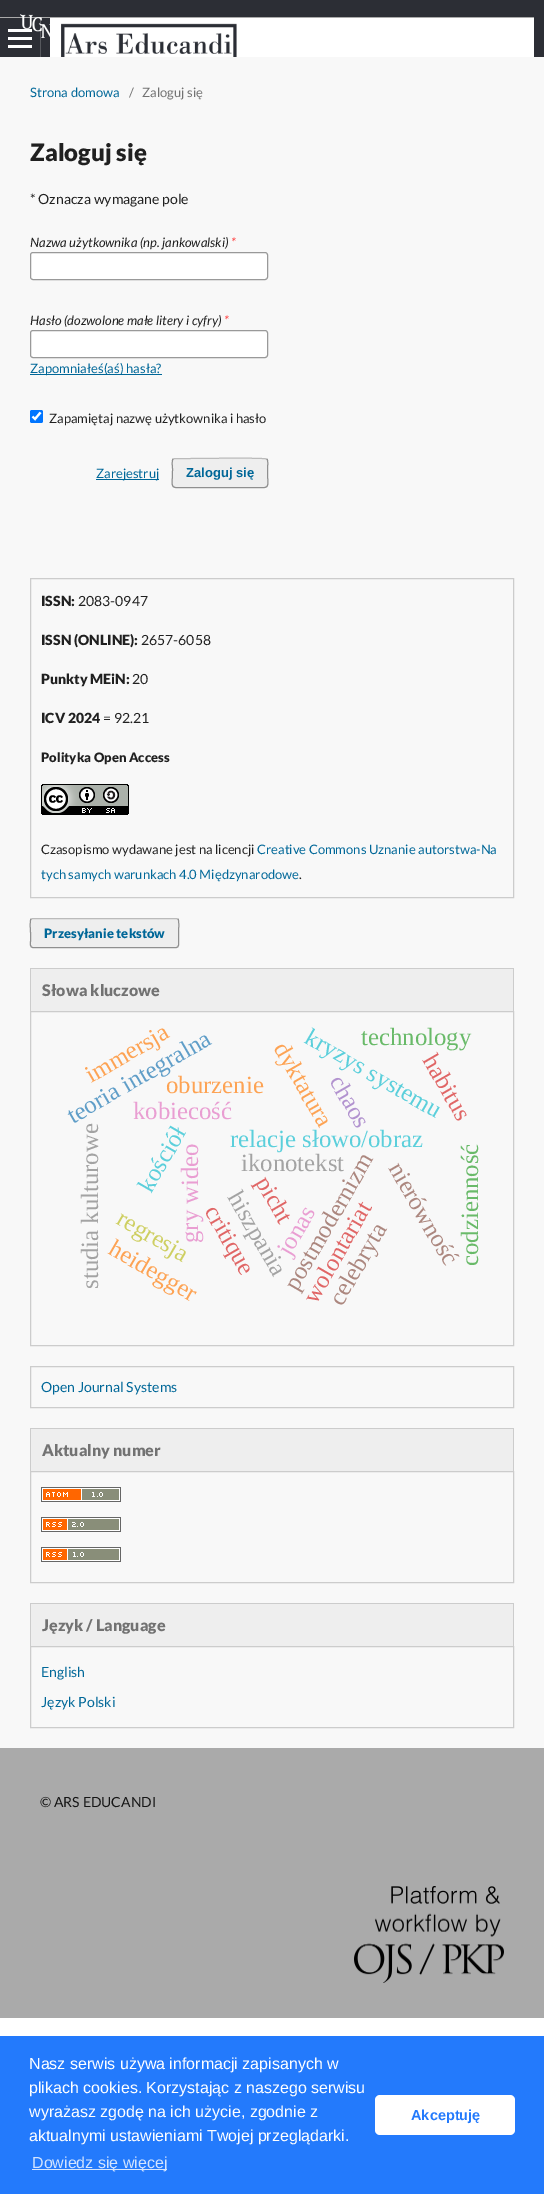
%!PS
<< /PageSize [544 2194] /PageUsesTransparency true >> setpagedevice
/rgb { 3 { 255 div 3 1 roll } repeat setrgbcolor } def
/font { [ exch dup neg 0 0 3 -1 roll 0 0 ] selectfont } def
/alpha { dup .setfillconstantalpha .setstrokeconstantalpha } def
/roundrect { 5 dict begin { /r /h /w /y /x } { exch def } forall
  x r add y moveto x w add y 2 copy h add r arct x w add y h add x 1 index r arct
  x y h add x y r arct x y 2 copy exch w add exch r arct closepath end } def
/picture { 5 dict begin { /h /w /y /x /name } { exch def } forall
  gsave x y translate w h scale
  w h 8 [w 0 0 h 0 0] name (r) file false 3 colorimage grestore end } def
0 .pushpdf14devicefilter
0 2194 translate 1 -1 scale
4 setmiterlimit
255 255 255 rgb
0 0 544 2194 rectfill
[
  [0 0 544 57 44 46 53]
  [40 18 1 39 86 88 93]
  [0 17 534 1 170 170 170]
  [8 29 24 3 255 255 255]
  [8 37 24 3 255 255 255]
] { aload pop rgb rectfill } forall
(img/1.rgb) 20 14 30 24 picture
8 45 24 3 rectfill
(img/2.rgb) 50 18 484 39 picture
248 248 248 rgb
0 57 544 1691 rectfill
255 255 255 rgb
30 252 238 28 3 roundrect fill
0.4 alpha
0 0 0 rgb
30.5 252.5 237 27 2.5 roundrect stroke
1 alpha
255 255 255 rgb
30 330 238 28 3 roundrect fill
0.4 alpha
0 0 0 rgb
30.5 330.5 237 27 2.5 roundrect stroke
1 alpha
0 103 152 rgb
30 374 132 1 rectfill
0 117 255 rgb
30 410 13 13 2 roundrect fill
255 255 255 rgb
2.1 setlinewidth
32.5 416.5 moveto 35 419 lineto 40.5 412.5 lineto stroke
0 103 152 rgb
96 479 63 1 rectfill
238 238 238 rgb
172 458 96 30 3 roundrect fill
187 187 187 rgb
1 setlinewidth
173 459 moveto 175 458.5 lineto 190 458.5 lineto 198 458.5 264.5 457.5 266.5 459 curveto 267 459 lineto stroke
0.4 alpha
0 0 0 rgb
267 459 moveto 268.5 461 267.5 467 267.5 469 curveto 267.5 491 272 487.5 250 487.5 curveto 190 487.5 lineto 168 487.5 172.5 491 172.5 469 curveto 172.5 467 171.5 461 173 459 curveto stroke
1 alpha
204 204 204 rgb
30.5 578.5 483 319 rectstroke
(img/3.rgb) 41 784 88 31 picture
238 238 238 rgb
30 918 149 30 3 roundrect fill
187 187 187 rgb
31 919 moveto 33 918.5 lineto 176 918.5 lineto 178 919 lineto stroke
0.4 alpha
0 0 0 rgb
178 919 moveto 179.5 921 178.5 930.5 178.5 933 curveto 178.5 941 lineto 178.5 943 179.5 947.5 176 947.5 curveto 33 947.5 lineto 29.5 947.5 30.5 943 30.5 941 curveto 30.5 933 lineto 30.5 930.5 29.5 921 31 919 curveto stroke
1 alpha
[
  [31 969 482 42 238 238 238]
  [30 968 484 1 204 204 204]
  [513 968 1 43 204 204 204]
  [30 968 1 43 204 204 204]
] { aload pop rgb rectfill } forall
30.5 1011.5 483 334 rectstroke
30.5 1366.5 483 41 rectstroke
[
  [31 1429 482 42 238 238 238]
  [30 1428 484 1 204 204 204]
  [513 1428 1 43 204 204 204]
  [30 1428 1 43 204 204 204]
] { aload pop rgb rectfill } forall
30.5 1471.5 483 111 rectstroke
(img/4.rgb) 41 1487 80 15 picture
(img/5.rgb) 41 1517 80 15 picture
(img/6.rgb) 41 1547 80 15 picture
[
  [31 1604 482 42 238 238 238]
  [30 1603 484 1 204 204 204]
  [513 1603 1 43 204 204 204]
  [30 1603 1 43 204 204 204]
] { aload pop rgb rectfill } forall
30.5 1646.5 483 81 rectstroke
170 170 170 rgb
0 1748 544 270 rectfill
(img/7.rgb) 354 1886 150 97 picture
35 122 252 rgb
0 2036 544 158 rectfill
211 228 254 rgb
32 2169 135 1 rectfill
255 255 255 rgb
375 2095 140 40 5 roundrect fill
/Lato-Regular 13 font
0 103 152 rgb
30 97 moveto (Strona domowa) show
114 114 114 rgb
129 97 moveto (/) show
142 97 moveto (Zaloguj się) show
/Lato-Black 24 font
32 32 32 rgb
30 161 moveto (Zaloguj się) show
/Lato-Regular 14 font
30 204 moveto (* Oznacza wymagane pole) show
/Lato-Italic 13 font
30 247 moveto (Nazwa użytkownika \(np. jankowalski\)) show
255 64 64 rgb
231 247 moveto (*) show
32 32 32 rgb
30 325 moveto (Hasło \(dozwolone małe litery i cyfry\)) show
255 64 64 rgb
224 325 moveto (*) show
/Lato-Regular 13 font
0 103 152 rgb
30 373 moveto (Zapomniałeś\(aś\) hasła?) show
32 32 32 rgb
49 423 moveto (Zapamiętaj nazwę użytkownika i hasło) show
0 103 152 rgb
96 478 moveto (Zarejestruj) show
/LiberationSans-Bold 13 font
186 477 moveto (Zaloguj się) show
/Lato-Black 14 font
32 32 32 rgb
41 606 moveto (ISSN:) show
/Lato-Regular 14 font
78 606 moveto (2083-0947) show
/Lato-Black 14 font
41 645 moveto (ISSN \(ONLINE\):) show
/Lato-Regular 14 font
141 645 moveto (2657-6058) show
/Lato-Black 14 font
41 684 moveto (Punkty MEiN:) show
/Lato-Regular 14 font
132 684 moveto (20) show
/Lato-Black 14 font
41 723 moveto (ICV 2024) show
/Lato-Regular 14 font
103 723 moveto (= 92.21) show
/Lato-Black 13 font
41 762 moveto (Polityka Open Access) show
/Lato-Regular 13 font
41 854 moveto (Czasopismo wydawane jest na licencji) show
0 103 152 rgb
257 854 moveto (Creative Commons Uznanie autorstwa-Na) show
41 879 moveto (tych samych warunkach 4.0 Międzynarodowe) show
32 32 32 rgb
299 879 moveto (.) show
/Lato-Black 13 font
0 103 152 rgb
44 938 moveto (Przesyłanie tekstów) show
/Lato-Black 16 font
114 114 114 rgb
42 996 moveto (Słowa kluczowe) show
/LiberationSerif-Regular 24.75 font
253 163 84 rgb
gsave 273 1048 translate 60 rotate 0 0 moveto (dyktatura) show grestore
91 207 219 rgb
gsave 303 1042 translate 30 rotate 0 0 moveto (kryzys systemu) show grestore
105 186 105 rgb
361 1045 moveto (technology) show
178 147 207 rgb
gsave 329 1081 translate 60 rotate 0 0 moveto (chaos) show grestore
224 102 102 rgb
gsave 422 1060 translate 60 rotate 0 0 moveto (habitus) show grestore
233 158 210 rgb
133 1119 moveto (kobiecość) show
96 158 200 rgb
gsave 73 1124 translate -30 rotate 0 0 moveto (teoria integralna) show grestore
253 163 84 rgb
166 1093 moveto (oburzenie) show
gsave 91 1083 translate -30 rotate 0 0 moveto (immersja) show grestore
163 163 163 rgb
gsave 98 1289 translate -90 rotate 0 0 moveto (studia kulturowe) show grestore
91 207 219 rgb
230 1147 moveto (relacje słowo/obraz) show
233 158 210 rgb
gsave 198 1243 translate -90 rotate 0 0 moveto (gry wideo) show grestore
91 207 219 rgb
gsave 151 1194 translate -60 rotate 0 0 moveto (kościół) show grestore
105 186 105 rgb
gsave 478 1266 translate -90 rotate 0 0 moveto (codzienność) show grestore
172 135 127 rgb
gsave 297 1292 translate -60 rotate 0 0 moveto (postmodernizm) show grestore
163 163 163 rgb
241 1171 moveto (ikonotekst) show
172 135 127 rgb
gsave 388 1168 translate 60 rotate 0 0 moveto (nierówność) show grestore
163 163 163 rgb
gsave 227 1197 translate 60 rotate 0 0 moveto (hiszpania) show grestore
224 102 102 rgb
gsave 255 1182 translate 60 rotate 0 0 moveto (picht) show grestore
206 207 98 rgb
gsave 115 1223 translate 30 rotate 0 0 moveto (regresja) show grestore
224 102 102 rgb
gsave 204 1211 translate 60 rotate 0 0 moveto (critique) show grestore
233 158 210 rgb
gsave 290 1257 translate -60 rotate 0 0 moveto (jonas) show grestore
224 102 102 rgb
gsave 316 1305 translate -60 rotate 0 0 moveto (wolontariat) show grestore
172 135 127 rgb
gsave 342 1307 translate -60 rotate 0 0 moveto (celebryta) show grestore
253 163 84 rgb
gsave 107 1253 translate 30 rotate 0 0 moveto (heidegger) show grestore
/Lato-Regular 14 font
0 103 152 rgb
41 1392 moveto (Open Journal Systems) show
/Lato-Black 16 font
114 114 114 rgb
42 1456 moveto (Aktualny numer) show
42 1631 moveto (Język / Language) show
/Lato-Regular 14 font
0 103 152 rgb
41 1677 moveto (English) show
41 1707 moveto (Język Polski) show
22 22 22 rgb
40 1807 moveto (© ARS EDUCANDI) show
/LiberationSans-Regular 16 font
255 255 255 rgb
[
  [(Nasz serwis używa informacji zapisanych w) 29 2069]
  [(plikach cookies. Korzystając z naszego serwisu) 29 2093]
  [(wyrażasz zgodę na ich użycie, zgodnie z) 29 2117]
  [(aktualnymi ustawieniami Twojej przeglądarki.) 29 2141]
] { aload pop moveto show } forall
211 228 254 rgb
32 2168 moveto (Dowiedz się więcej) show
/LiberationSans-Bold 14.5 font
35 122 252 rgb
411 2120 moveto (Akceptuję) show
.poppdf14devicefilter showpage
